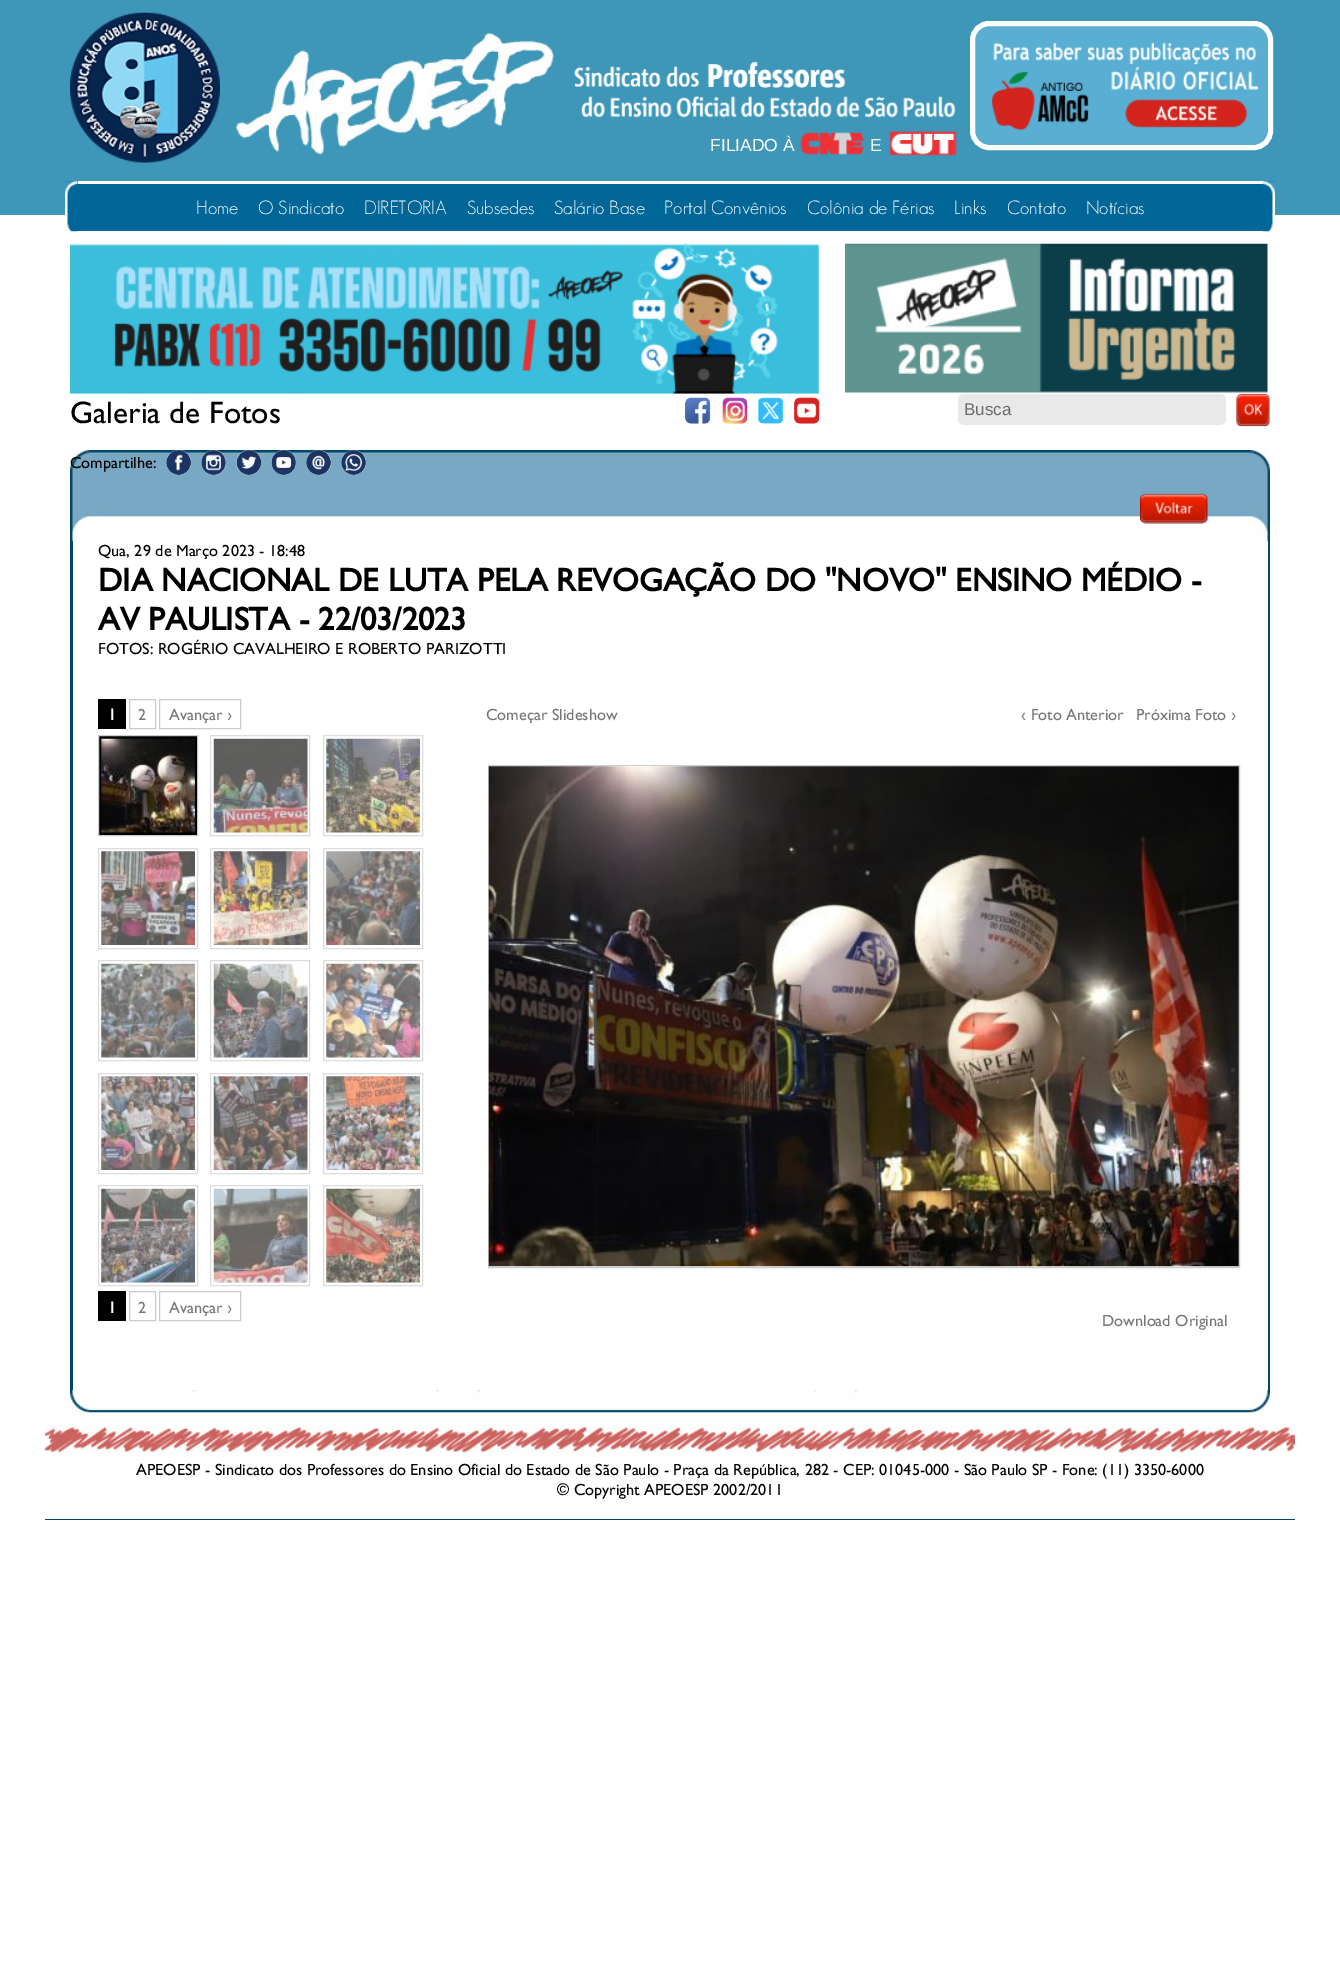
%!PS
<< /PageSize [1340 1969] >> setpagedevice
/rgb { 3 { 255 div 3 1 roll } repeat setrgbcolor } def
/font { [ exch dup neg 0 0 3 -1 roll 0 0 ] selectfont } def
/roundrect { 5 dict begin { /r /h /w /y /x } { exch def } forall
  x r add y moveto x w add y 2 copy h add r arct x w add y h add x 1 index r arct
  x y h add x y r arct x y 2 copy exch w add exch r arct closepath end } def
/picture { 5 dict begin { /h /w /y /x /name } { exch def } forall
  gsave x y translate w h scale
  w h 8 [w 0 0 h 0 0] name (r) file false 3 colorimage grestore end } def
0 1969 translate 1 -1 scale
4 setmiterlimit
255 255 255 rgb
0 0 1340 1969 rectfill
62 151 185 rgb
0 0 1340 215 rectfill
(img/1.rgb) 70 12 150 151 picture
(img/2.rgb) 232 31 324 125 picture
(img/3.rgb) 574 61 382 57 picture
(img/4.rgb) 800 132 65 23 picture
(img/5.rgb) 889 130 68 26 picture
90 175 208 rgb
972.5 23.5 298 124 16.5 roundrect gsave fill grestore
255 255 255 rgb
5 setlinewidth
stroke
(img/6.rgb) 991 33 271 98 picture
0 102 151 rgb
65 181 1210 50 rectfill
(img/7.rgb) 65 181 13 51 picture
255 255 255 rgb
78 181 1185 3 rectfill
(img/8.rgb) 1262 181 13 51 picture
(img/9.rgb) 70 243 749 151 picture
(img/10.rgb) 845 243 423 150 picture
(img/11.rgb) 685 397 26 27 picture
(img/12.rgb) 721 397 27 27 picture
(img/13.rgb) 758 397 26 27 picture
(img/14.rgb) 794 397 26 27 picture
233 233 233 rgb
958 394 268 31 6 roundrect fill
(img/15.rgb) 1236 393 34 34 picture
(img/16.rgb) 70 450 1200 92 picture
(img/17.rgb) 166 450 26 25 picture
(img/18.rgb) 201 450 26 25 picture
(img/19.rgb) 236 450 25 25 picture
(img/20.rgb) 271 450 25 25 picture
(img/21.rgb) 306 450 26 25 picture
(img/22.rgb) 341 450 26 25 picture
(img/23.rgb) 1140 493 68 31 picture
[
  [1268 541 2 849 3 72 103]
  [70 541 3 849 3 72 103]
  [98 699 28 30 0 0 0]
] { aload pop rgb rectfill } forall
204 204 204 rgb
1 setlinewidth
129.5 699.5 26 29 rectstroke
159.5 699.5 81 29 rectstroke
0 0 0 rgb
98.5 735.5 moveto 197.5 735.5 lineto 197.5 835.5 lineto 98.5 835.5 lineto closepath gsave fill grestore
204 204 204 rgb
stroke
(img/24.rgb) 101 738 94 95 picture
221 221 221 rgb
210.5 735.5 99 100 rectstroke
(img/25.rgb) 213 738 95 95 picture
323.5 735.5 99 100 rectstroke
(img/26.rgb) 326 738 94 95 picture
98.5 848.5 99 100 rectstroke
(img/27.rgb) 101 851 94 94 picture
210.5 848.5 99 100 rectstroke
(img/28.rgb) 213 851 95 94 picture
323.5 848.5 99 100 rectstroke
(img/29.rgb) 326 851 94 94 picture
98.5 960.5 99 100 rectstroke
(img/30.rgb) 101 963 94 95 picture
210.5 960.5 99 100 rectstroke
(img/31.rgb) 213 963 95 95 picture
323.5 960.5 99 100 rectstroke
(img/32.rgb) 326 963 94 95 picture
98.5 1073.5 99 100 rectstroke
(img/33.rgb) 101 1076 94 94 picture
210.5 1073.5 99 100 rectstroke
(img/34.rgb) 213 1076 95 94 picture
323.5 1073.5 99 100 rectstroke
(img/35.rgb) 326 1076 94 94 picture
98.5 1185.5 99 100 rectstroke
(img/36.rgb) 101 1188 94 95 picture
210.5 1185.5 99 100 rectstroke
(img/37.rgb) 213 1188 95 95 picture
323.5 1185.5 99 100 rectstroke
(img/38.rgb) 326 1188 94 95 picture
0 0 0 rgb
98 1291 28 30 rectfill
204 204 204 rgb
129.5 1291.5 26 29 rectstroke
159.5 1291.5 81 29 rectstroke
488.5 765.5 751 502 rectstroke
(img/39.rgb) 488 766 751 501 picture
(img/40.rgb) 70 1390 1200 23 picture
(img/41.rgb) 45 1425 1250 29 picture
3 72 105 rgb
45 1519 1250 1 rectfill
/LiberationSans-Regular 17.5 font
255 255 255 rgb
710 151 moveto (FILIADO À) show
870 151 moveto (E) show
/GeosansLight-Light 18.75 font
[
  [(Home) 196 214]
  [(O Sindicato) 258 214]
  [(DIRETORIA) 364 214]
  [(Subsedes) 467 214]
  [(Salário Base) 554 214]
  [(Portal Convênios) 664 214]
  [(Colônia de Férias) 807 214]
  [(Links) 954 214]
  [(Contato) 1007 214]
  [(Notícias) 1086 214]
] { aload pop moveto show } forall
/GillSans-Regular 31.25 font
0 0 0 rgb
70 423 moveto (Galeria de Fotos) show
/LiberationSans-Regular 17 font
106 107 111 rgb
964 415 moveto (Busca) show
/GillSans-Regular 16.25 font
0 0 0 rgb
70 468 moveto (Compartilhe:) show
98 556 moveto (Qua, 29 de Março 2023 - 18:48) show
/GillSans-Bold 32.5 font
98 591 moveto (DIA NACIONAL DE LUTA PELA REVOGAÇÃO DO "NOVO" ENSINO MÉDIO -) show
98 630 moveto (AV PAULISTA - 22/03/2023) show
/GillSans-Regular 16.25 font
98 654 moveto (FOTOS: ROGÉRIO CAVALHEIRO E ROBERTO PARIZOTTI) show
/GillSans-Bold 16.25 font
255 255 255 rgb
108 720 moveto (1) show
/GillSans-Regular 16.25 font
119 119 119 rgb
138 720 moveto (2) show
169 720 moveto (Avançar ›) show
/GillSans-Bold 16.25 font
255 255 255 rgb
108 1313 moveto (1) show
/GillSans-Regular 16.25 font
119 119 119 rgb
[
  [(2) 138 1313]
  [(Avançar ›) 169 1313]
  [(Começar Slideshow) 486 720]
  [(‹ Foto Anterior) 1021 720]
  [(Próxima Foto ›) 1136 720]
  [(Download Original) 1102 1326]
] { aload pop moveto show } forall
0 0 0 rgb
136 1475 moveto (APEOESP - Sindicato dos Professores do Ensino Oficial do Estado de São Paulo - Praça da República, 282 - CEP: 01045-000 - São Paulo SP - Fone: \(11\) 3350-6000) show
557 1495 moveto (© Copyright APEOESP 2002/2011) show
showpage
